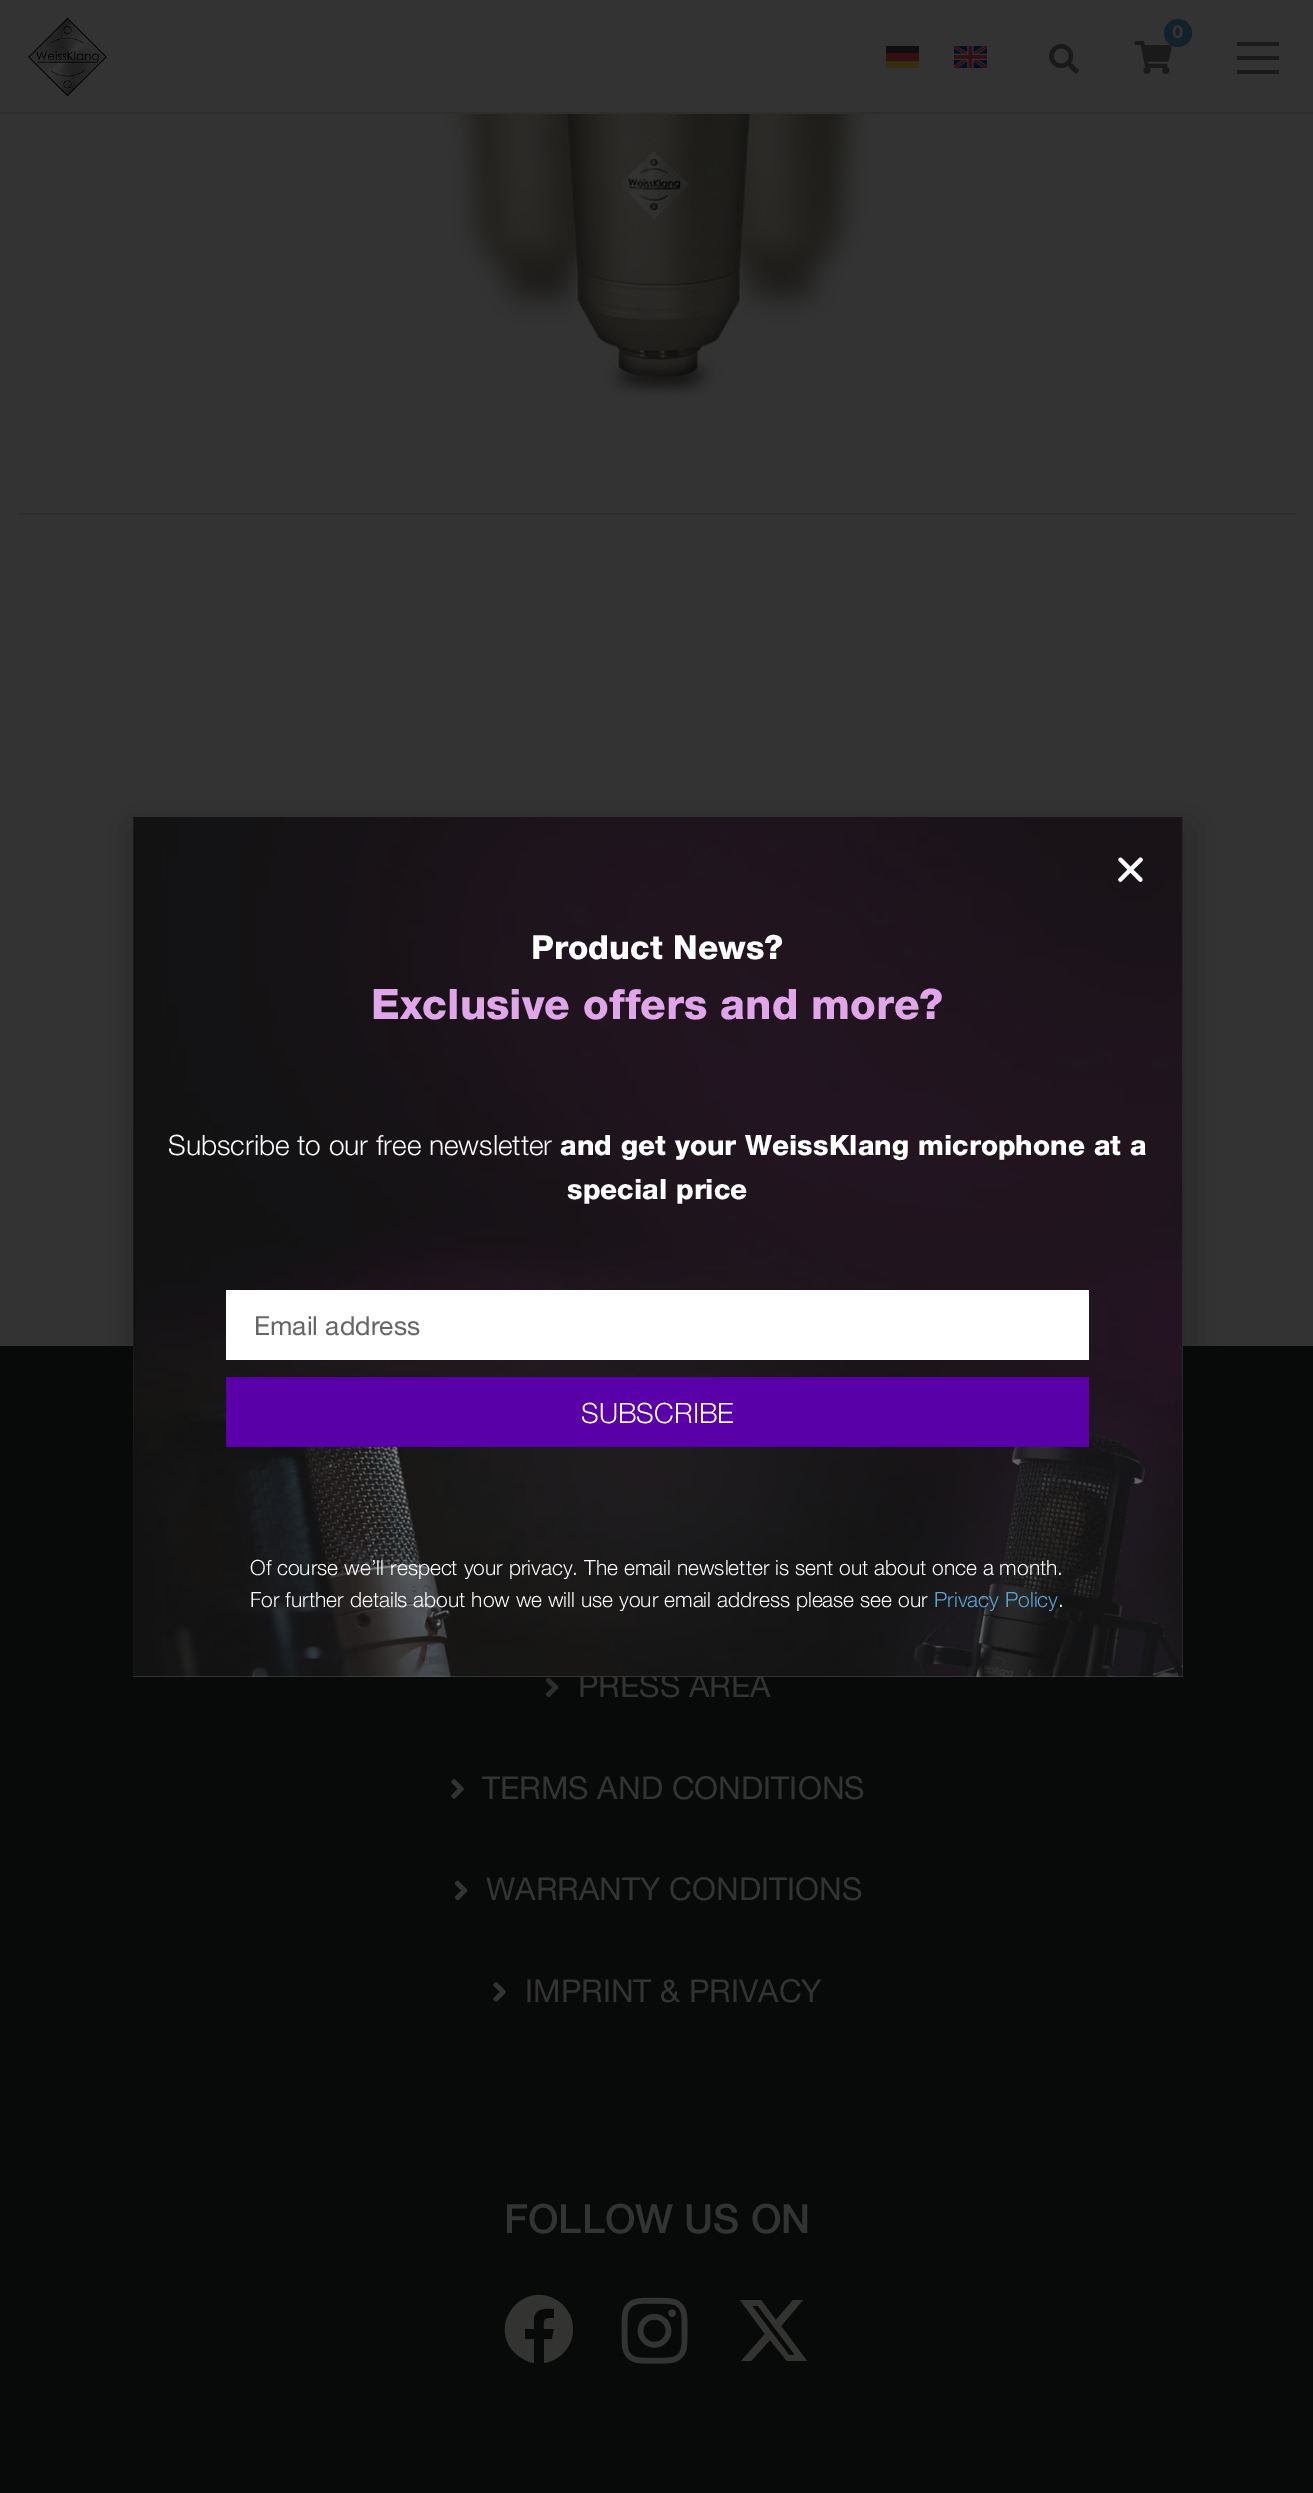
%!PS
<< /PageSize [1313 2493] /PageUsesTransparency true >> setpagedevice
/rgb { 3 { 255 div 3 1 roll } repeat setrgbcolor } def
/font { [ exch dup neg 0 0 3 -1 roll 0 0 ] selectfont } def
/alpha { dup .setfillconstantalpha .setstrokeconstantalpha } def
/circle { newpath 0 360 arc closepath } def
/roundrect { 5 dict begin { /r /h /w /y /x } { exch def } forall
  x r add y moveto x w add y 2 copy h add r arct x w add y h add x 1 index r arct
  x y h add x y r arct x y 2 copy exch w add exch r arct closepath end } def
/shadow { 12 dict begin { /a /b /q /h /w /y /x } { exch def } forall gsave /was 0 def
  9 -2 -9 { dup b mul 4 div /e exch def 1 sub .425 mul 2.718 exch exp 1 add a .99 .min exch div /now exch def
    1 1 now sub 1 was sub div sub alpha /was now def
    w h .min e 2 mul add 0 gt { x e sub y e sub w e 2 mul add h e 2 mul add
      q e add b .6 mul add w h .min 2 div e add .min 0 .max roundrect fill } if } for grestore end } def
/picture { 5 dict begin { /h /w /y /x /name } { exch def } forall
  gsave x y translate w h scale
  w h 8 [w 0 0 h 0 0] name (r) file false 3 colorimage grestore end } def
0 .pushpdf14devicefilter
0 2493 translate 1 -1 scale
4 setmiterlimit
51 51 51 rgb
0 0 1313 2493 rectfill
46 46 46 rgb
0 112 1313 2 rectfill
(img/1.rgb) 28 17 79 80 picture
(img/4.rgb) 1134 40 38 35 picture
19 33 42 rgb
1178 33 14 circle fill
[
  [886 46 33 7 14 14 17]
  [886 53 33 8 51 15 17]
  [886 61 33 7 51 45 18]
] { aload pop rgb rectfill } forall
(img/2.rgb) 954 46 33 22 picture
(img/3.rgb) 1049 44 30 30 picture
[
  [1237 42 42 4 26 26 26]
  [1237 56 42 4 26 26 26]
  [1237 70 42 4 26 26 26]
  [18 513 1279 2 46 46 46]
] { aload pop rgb rectfill } forall
(img/5.rgb) 442 114 434 283 picture
8 9 9 rgb
0 1346 1313 1147 rectfill
(img/8.rgb) 545 1677 14 21 picture
0 0 0 rgb
131 826 1061 870 0 20 0.2 shadow
(img/9.rgb) 451 1779 13 20 picture
(img/8.rgb) 454 1880 14 21 picture
(img/9.rgb) 493 1982 13 20 picture
51 51 50 rgb
573 2329 moveto 573 2346 561 2360 544 2363 curveto 544 2339 lineto 552 2339 lineto 554 2329 lineto 544 2329 lineto 544 2319 543 2318 554 2318 curveto 554 2309 lineto 546 2308 536 2308 534 2317 curveto 534 2329 lineto 525 2329 lineto 525 2339 lineto 534 2339 lineto 534 2363 lineto 526 2362 519 2357 513 2351 curveto 488 2322 525 2279 558 2301 curveto 567 2307 573 2318 573 2329 curveto closepath fill
(img/10.rgb) 621 2297 67 67 picture
793 2300 moveto 803 2300 lineto 781 2326 lineto 807 2361 lineto 787 2361 lineto 770 2340 lineto 751 2361 lineto 741 2361 lineto 765 2334 lineto 740 2300 lineto 761 2300 lineto 776 2320 lineto closepath 789 2355 moveto 795 2355 lineto 758 2306 lineto 752 2306 lineto closepath fill
/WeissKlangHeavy-ExtraBold 18 font
51 51 51 rgb
1172 38 moveto (0) show
/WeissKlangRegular-Regular 31.5 font
578 1697 moveto (PRESS AREA) show
255 255 255 rgb
133 817 1050 860 rectfill
(img/7.rgb) 133 817 1050 860 picture
0.5 alpha
36 36 36 rgb
133 817 1050 860 rectfill
1 alpha
(img/6.rgb) 1118 857 25 25 picture
/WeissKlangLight-Light 21 font
255 255 255 rgb
1058 1607 moveto (.) show
93 164 208 rgb
934 1607 moveto (Privacy Policy) show
255 255 255 rgb
250 1607 moveto (For further details about how we will use your email address please see our) show
250 1575 moveto (Of course we’ll respect your privacy. The email newsletter is sent out about once a month.) show
89 0 168 rgb
226 1377 863 70 rectfill
/WeissKlangLight-Light 28 font
255 255 255 rgb
581 1423 moveto (SUBSCRIBE) show
226 1290 863 70 rectfill
/WeissKlangRegular-Regular 26.25 font
102 102 102 rgb
254 1335 moveto (Email address) show
/WeissKlangHeavy-ExtraBold 28 font
255 255 255 rgb
567 1199 moveto (special price) show
560 1155 moveto (and get your WeissKlang microphone at a) show
/WeissKlangLight-Light 28 font
168 1155 moveto (Subscribe to our free newsletter) show
/WeissKlangHeavy-ExtraBold 42 font
225 165 233 rgb
371 1019 moveto (Exclusive offers and more?) show
/WeissKlangHeavy-ExtraBold 33.25 font
255 255 255 rgb
531 959 moveto (Product News?) show
/WeissKlangRegular-Regular 31.5 font
51 51 51 rgb
[
  [(TERMS AND CONDITIONS) 482 1799]
  [(WARRANTY CONDITIONS) 486 1900]
  [(IMPRINT & PRIVACY) 525 2002]
] { aload pop moveto show } forall
/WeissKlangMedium-Medium 40.25 font
504 2233 moveto (FOLLOW US ON) show
.poppdf14devicefilter showpage
